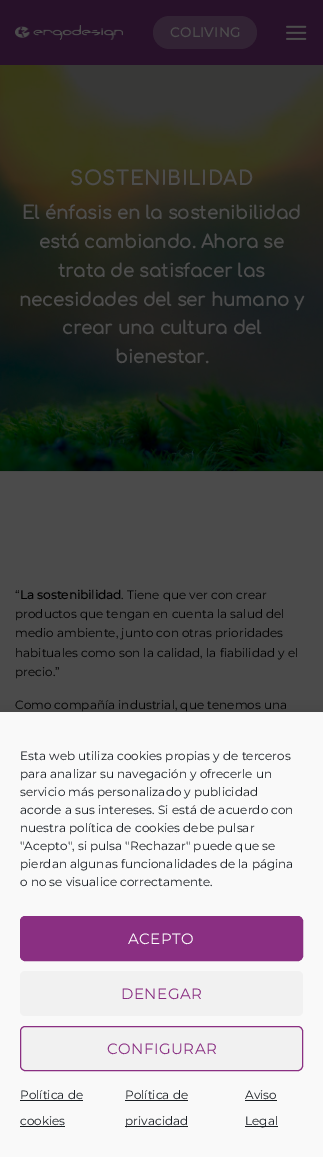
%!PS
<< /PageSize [323 1157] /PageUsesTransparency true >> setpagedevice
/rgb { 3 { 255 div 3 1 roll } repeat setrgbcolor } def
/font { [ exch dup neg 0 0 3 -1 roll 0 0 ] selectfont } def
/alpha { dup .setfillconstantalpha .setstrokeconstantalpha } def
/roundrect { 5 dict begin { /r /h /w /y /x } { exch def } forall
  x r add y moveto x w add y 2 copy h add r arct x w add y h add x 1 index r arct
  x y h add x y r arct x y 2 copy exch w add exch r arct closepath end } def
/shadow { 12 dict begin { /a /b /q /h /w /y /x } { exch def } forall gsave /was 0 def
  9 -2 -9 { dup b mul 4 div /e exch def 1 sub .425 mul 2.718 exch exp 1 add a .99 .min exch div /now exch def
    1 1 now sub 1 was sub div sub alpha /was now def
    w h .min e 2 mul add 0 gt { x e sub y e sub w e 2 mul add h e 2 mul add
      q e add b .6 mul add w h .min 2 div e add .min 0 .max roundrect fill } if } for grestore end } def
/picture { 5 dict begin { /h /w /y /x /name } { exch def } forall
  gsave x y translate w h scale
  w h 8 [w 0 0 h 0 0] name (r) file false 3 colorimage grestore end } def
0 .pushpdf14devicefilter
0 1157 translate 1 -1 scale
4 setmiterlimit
255 255 255 rgb
0 0 323 1157 rectfill
39 17 41 rgb
0 0 323 65 rectfill
(img/1.rgb) 15 25 108 15 picture
50 35 52 rgb
153 16 104 33 16.5 roundrect fill
(img/2.rgb) 286 25 21 15 picture
(img/3.rgb) 0 65 323 406 picture
71 71 71 rgb
0 471 323 1 rectfill
75 75 75 rgb
0 472 323 240 rectfill
0 0 0 rgb
0 722 323 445 0 10 0.19 shadow
249 249 249 rgb
0 713 323 444 rectfill
138 47 130 rgb
20.5 916.5 282 44 4.5 roundrect gsave fill grestore
stroke
241 241 241 rgb
20 971 283 45 5 roundrect fill
20.5 1026.5 282 44 4.5 roundrect gsave fill grestore
138 47 130 rgb
stroke
[
  [20 1100 63 1 25 30 35]
  [20 1126 45 1 25 30 35]
  [125 1100 63 1 25 30 35]
  [125 1126 63 1 25 30 35]
  [245 1100 32 1 25 30 35]
  [245 1126 33 1 25 30 35]
] { aload pop rgb rectfill } forall
/Montserrat-Bold 13.25 font
77 77 77 rgb
170 37 moveto 0.5 0 (COLIVING) ashow
/Comfortaa-Bold 19.25 font
70 185 moveto 1 0 (SOSTENIBILIDAD) ashow
/Comfortaa-Bold 18 font
[
  [(El énfasis en la sostenibilidad) 22 219]
  [(está cambiando. Ahora se) 39 248]
  [(trata de satisfacer las) 58 277]
  [(necesidades del ser humano y) 19 306]
  [(crear una cultura del) 62 334]
  [(bienestar.) 115 363]
] { aload pop moveto show } forall
/Montserrat-Thin 12 font
0 0 0 rgb
15 599 moveto (“) show
/Montserrat-Bold 12 font
20 599 moveto (La sostenibilidad) show
/Montserrat-Thin 12 font
[
  [(. Tiene que ver con crear) 121 599]
  [(productos que tengan en cuenta la salud del) 15 618]
  [(medio ambiente, junto con otras prioridades) 15 637]
  [(habituales como son la calidad, la fiabilidad y el) 15 657]
  [(precio.”) 15 676]
  [(Como compañía industrial, que tenemos una) 15 709]
] { aload pop moveto show } forall
25 30 35 rgb
[
  [(Esta web utiliza cookies propias y de terceros) 20 760]
  [(para analizar su navegación y ofrecerle un) 20 778]
  [(servicio más personalizado y publicidad) 20 796]
  [(acorde a sus intereses. Si está de acuerdo con) 20 814]
  [(nuestra política de cookies debe pulsar) 20 832]
  [("Acepto", si pulsa "Rechazar" puede que se) 20 850]
  [(pierdan algunas funcionalidades de la página) 20 868]
  [(o no se visualice correctamente.) 20 886]
] { aload pop moveto show } forall
/Montserrat-Thin 15 font
255 255 255 rgb
128 944 moveto 0.5 0 (ACEPTO) ashow
138 47 130 rgb
121 999 moveto 0.5 0 (DENEGAR) ashow
107 1054 moveto 0.5 0 (CONFIGURAR) ashow
/Montserrat-Thin 12 font
25 30 35 rgb
[
  [(Política de) 20 1099]
  [(cookies) 20 1125]
  [(Política de) 125 1099]
  [(privacidad) 125 1125]
  [(Aviso) 245 1099]
  [(Legal) 245 1125]
] { aload pop moveto show } forall
.poppdf14devicefilter showpage
